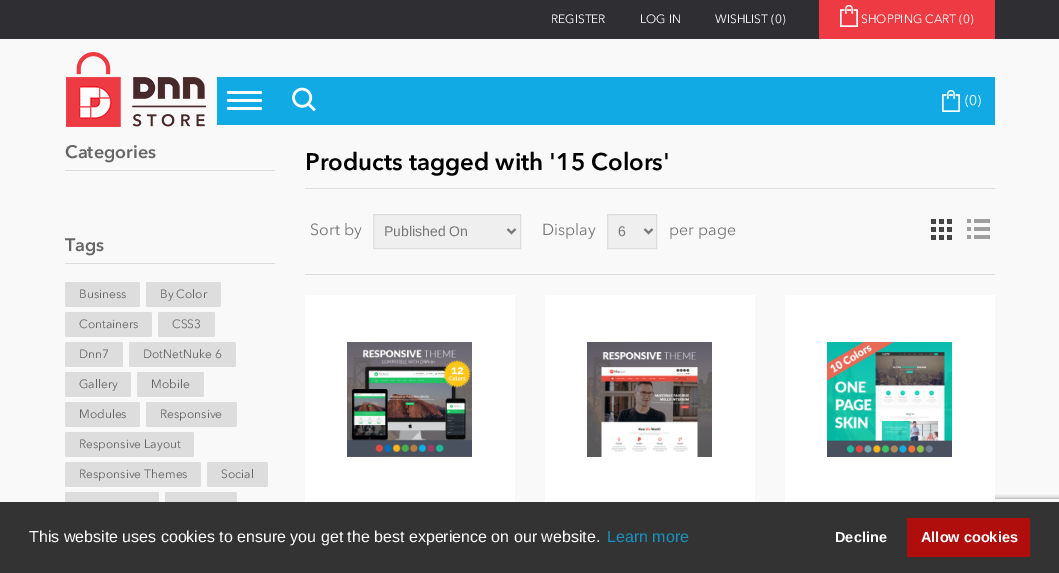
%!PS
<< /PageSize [1059 573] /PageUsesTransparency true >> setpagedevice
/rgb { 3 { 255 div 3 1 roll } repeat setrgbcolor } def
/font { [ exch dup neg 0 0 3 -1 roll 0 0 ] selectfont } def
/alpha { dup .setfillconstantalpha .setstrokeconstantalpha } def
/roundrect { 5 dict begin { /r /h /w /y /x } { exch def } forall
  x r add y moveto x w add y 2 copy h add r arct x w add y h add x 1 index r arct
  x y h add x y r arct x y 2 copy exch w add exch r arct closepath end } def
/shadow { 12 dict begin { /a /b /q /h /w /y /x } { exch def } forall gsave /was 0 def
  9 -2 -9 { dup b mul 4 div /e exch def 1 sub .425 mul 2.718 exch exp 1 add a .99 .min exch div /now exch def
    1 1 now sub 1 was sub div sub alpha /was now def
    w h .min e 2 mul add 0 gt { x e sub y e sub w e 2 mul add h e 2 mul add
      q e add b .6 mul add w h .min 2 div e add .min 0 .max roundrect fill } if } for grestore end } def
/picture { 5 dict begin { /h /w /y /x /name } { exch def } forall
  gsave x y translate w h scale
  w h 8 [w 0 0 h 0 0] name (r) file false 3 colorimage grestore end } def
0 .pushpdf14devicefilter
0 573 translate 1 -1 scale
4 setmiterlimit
249 249 249 rgb
0 0 1059 573 rectfill
47 47 51 rgb
0 0 1059 39 rectfill
238 58 67 rgb
819 0 176 39 rectfill
(img/1.rgb) 840 5 18 22 picture
(img/2.rgb) 66 52 140 75 picture
17 170 229 rgb
217 77 778 48 rectfill
255 255 255 rgb
227 99 35 3 1.5 roundrect fill
227 91 35 3 1.5 roundrect fill
227 107 35 3 1.5 roundrect fill
(img/3.rgb) 292 87 24 25 picture
(img/4.rgb) 942 90 18 22 picture
221 221 221 rgb
65 170 210 1 rectfill
65 263 210 1 rectfill
65 282 75 25 2 roundrect fill
146 282 75 25 2 roundrect fill
65 312 87 25 2 roundrect fill
158 312 57 25 2 roundrect fill
65 342 58 25 2 roundrect fill
129 342 107 25 2 roundrect fill
65 372 66 25 2 roundrect fill
137 372 67 25 2 roundrect fill
65 402 75 25 2 roundrect fill
146 402 91 25 2 roundrect fill
65 432 129 25 2 roundrect fill
65 462 136 25 2 roundrect fill
207 462 61 25 2 roundrect fill
65 492 94 25 2 roundrect fill
165 492 72 25 2 roundrect fill
305 188 690 1 rectfill
305 274 690 1 rectfill
239 239 239 rgb
373.5 214.5 moveto 520.5 214.5 lineto 520.5 248.5 lineto 373.5 248.5 lineto closepath gsave fill grestore
221 221 221 rgb
stroke
119 119 119 rgb
2 setlinewidth
507.5 229 moveto 511.5 233 lineto 515.5 229 lineto stroke
239 239 239 rgb
607.5 214.5 moveto 656.5 214.5 lineto 656.5 248.5 lineto 607.5 248.5 lineto closepath gsave fill grestore
221 221 221 rgb
1 setlinewidth
stroke
119 119 119 rgb
2 setlinewidth
644.5 229 moveto 648.5 233 lineto 652.5 229 lineto stroke
(img/5.rgb) 931 219 21 21 picture
(img/6.rgb) 967 219 23 20 picture
255 255 255 rgb
305 295 210 207 rectfill
(img/7.rgb) 347 342 125 115 picture
545 295 210 207 rectfill
(img/8.rgb) 587 342 125 115 picture
gsave
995 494 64 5 rectclip
128 128 128 rgb
989 499 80 60 2 2.5 1 shadow
grestore
785 295 210 207 rectfill
(img/9.rgb) 827 342 125 115 picture
51 51 51 rgb
0 502 1059 71 rectfill
176 13 13 rgb
907 518 123 39 rectfill
/AvenirNext-Regular 12 font
255 255 255 rgb
[
  [(REGISTER) 551 23]
  [(LOG IN) 640 23]
  [(WISHLIST \(0\)) 715 23]
  [(SHOPPING CART \(0\)) 861 23]
] { aload pop moveto show } forall
/AvenirNext-Regular 14 font
965 105 moveto (\(0\)) show
/AvenirNext-SemiBold 18 font
102 102 102 rgb
65 158 moveto (Categories) show
65 251 moveto (Tags) show
/AvenirNext-Regular 12 font
[
  [(Business) 79 298]
  [(By Color) 160 298]
  [(Containers) 79 328]
  [(CSS3) 172 328]
  [(Dnn7) 79 358]
  [(DotNetNuke 6) 143 358]
  [(Gallery) 79 388]
  [(Mobile) 151 388]
  [(Modules) 79 418]
  [(Responsive) 160 418]
  [(Responsive Layout) 79 448]
  [(Responsive Themes) 79 478]
  [(Social) 221 478]
] { aload pop moveto show } forall
/AvenirNext-SemiBold 24 font
0 0 0 rgb
305 170 moveto (Products tagged with '15 Colors') show
/AvenirNext-Regular 16 font
119 119 119 rgb
310 235 moveto (Sort by) show
/LiberationSans-Regular 14 font
384 236 moveto (Published On) show
/AvenirNext-Regular 16 font
542 235 moveto (Display) show
/LiberationSans-Regular 14 font
618 236 moveto (6) show
/AvenirNext-Regular 16 font
669 235 moveto (per page) show
/LiberationSans-Regular 16 font
255 255 255 rgb
29 542 moveto (This website uses cookies to ensure you get the best experience on our website.) show
24 146 193 rgb
607 542 moveto (Learn more) show
/LiberationSans-Bold 14.5 font
255 255 255 rgb
835 542 moveto (Decline) show
921 542 moveto (Allow cookies) show
.poppdf14devicefilter showpage
